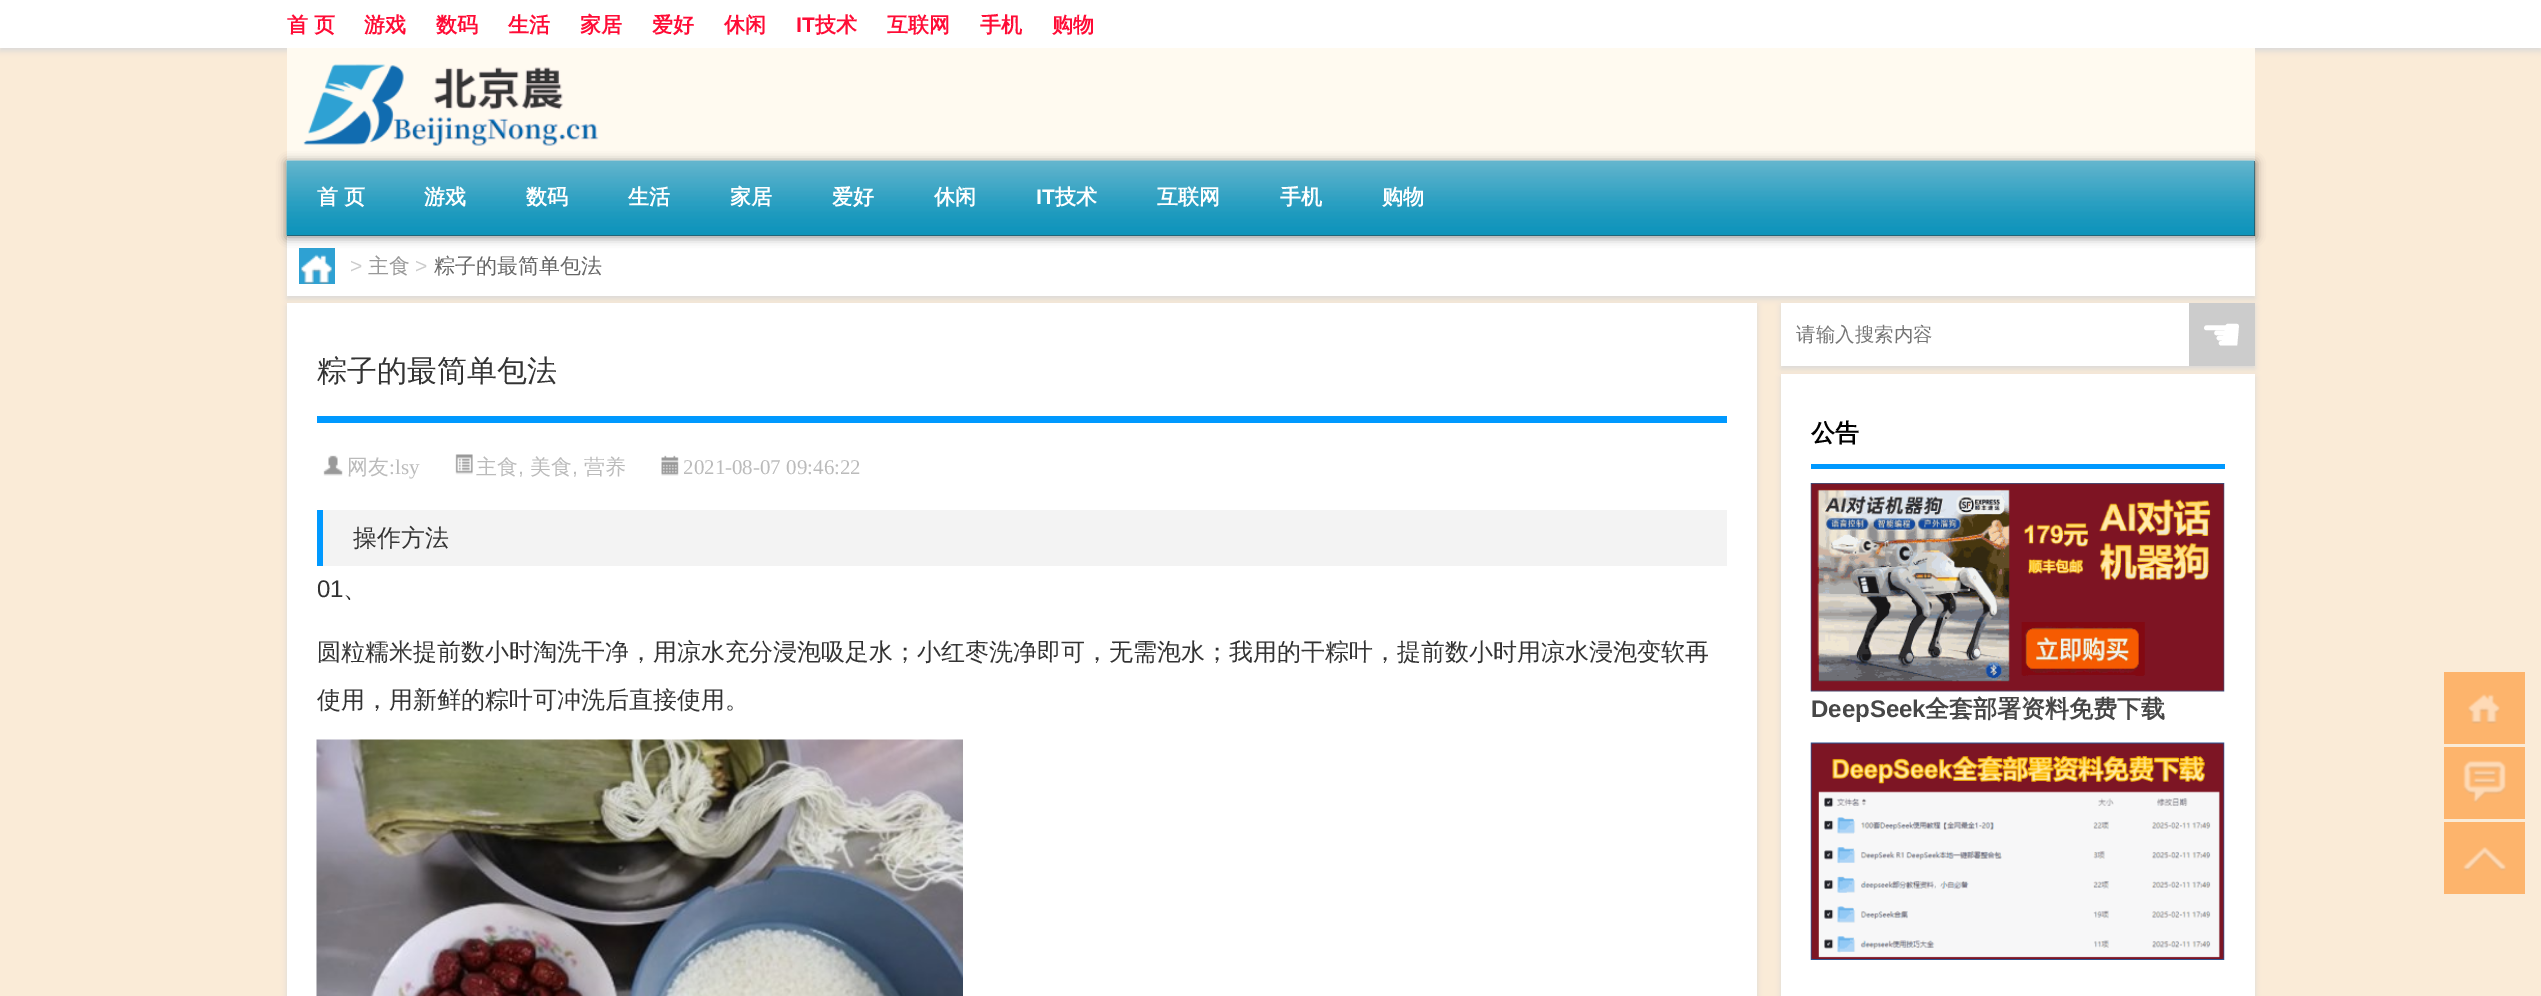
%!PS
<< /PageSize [2541 996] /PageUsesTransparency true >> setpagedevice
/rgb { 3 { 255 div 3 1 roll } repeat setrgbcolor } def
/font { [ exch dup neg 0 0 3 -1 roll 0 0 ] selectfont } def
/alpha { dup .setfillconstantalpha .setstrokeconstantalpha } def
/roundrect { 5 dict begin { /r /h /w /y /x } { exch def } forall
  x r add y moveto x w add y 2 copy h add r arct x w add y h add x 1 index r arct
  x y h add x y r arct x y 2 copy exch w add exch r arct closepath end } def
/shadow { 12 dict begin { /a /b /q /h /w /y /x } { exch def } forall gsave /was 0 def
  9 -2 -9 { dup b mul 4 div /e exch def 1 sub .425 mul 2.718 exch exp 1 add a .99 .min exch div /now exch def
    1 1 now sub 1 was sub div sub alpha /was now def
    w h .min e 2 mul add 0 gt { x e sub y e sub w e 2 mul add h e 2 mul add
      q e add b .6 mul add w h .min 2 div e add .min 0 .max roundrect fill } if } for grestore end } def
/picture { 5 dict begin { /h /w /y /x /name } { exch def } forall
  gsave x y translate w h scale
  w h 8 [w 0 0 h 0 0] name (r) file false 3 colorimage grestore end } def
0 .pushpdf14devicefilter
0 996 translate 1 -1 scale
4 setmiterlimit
250 235 215 rgb
0 0 2541 996 rectfill
217 217 217 rgb
0 3 2541 48 0 3 1 shadow
255 255 255 rgb
0 0 2541 48 rectfill
0 0 0 rgb
287 164 1968 75 0 3 0.1 shadow
255 250 240 rgb
287 48 1968 113 rectfill
(img/1.rgb) 303 64 296 82 picture
54 54 54 rgb
287 161 1968 75 rectfill
217 217 217 rgb
287 239 1968 60 0 3 1 shadow
255 255 255 rgb
287 236 1968 60 rectfill
46 161 211 rgb
299 248 36 36 rectfill
0 0 0 rgb
287 162 1968 75 0 5 0.5 shadow
(img/2.rgb) 286 160 1969 76 picture
(img/3.rgb) 301 254 31 30 picture
217 217 217 rgb
287 306 1470 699 0 3 1 shadow
255 255 255 rgb
287 303 1470 693 rectfill
0 153 255 rgb
317 416 1410 7 rectfill
(img/4.rgb) 323 455 20 21 picture
(img/5.rgb) 455 454 18 21 picture
(img/6.rgb) 661 455 18 21 picture
243 243 243 rgb
323 510 1404 56 rectfill
0 153 255 rgb
317 510 6 56 rectfill
(img/7.rgb) 316 739 647 257 picture
217 217 217 rgb
1781 306 474 63 0 3 1 shadow
255 255 255 rgb
1781 303 408 63 rectfill
204 204 204 rgb
2189 303 66 63 rectfill
217 217 217 rgb
1781 377 474 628 0 3 1 shadow
255 255 255 rgb
1781 374 474 622 rectfill
0 153 255 rgb
1811 464 414 5 rectfill
(img/8.rgb) 1810 483 415 209 picture
(img/9.rgb) 1810 742 415 218 picture
253 180 108 rgb
2444 672 81 72 rectfill
(img/10.rgb) 2468 694 32 30 picture
2444 747 81 72 rectfill
(img/11.rgb) 2463 760 43 43 picture
2444 822 81 72 rectfill
(img/12.rgb) 2463 847 43 24 picture
/WenQuanYiZenHei-Bold 21 font
255 12 54 rgb
[
  [(首 页) 287 32]
  [(游戏) 364 32]
  [(数码) 436 32]
  [(生活) 508 32]
  [(家居) 580 32]
  [(爱好) 652 32]
  [(休闲) 724 32]
] { aload pop moveto show } forall
/LiberationSans-Bold 21 font
796 32 moveto (IT) show
/WenQuanYiZenHei-Bold 21 font
[
  [(技术) 815 32]
  [(互联网) 887 32]
  [(手机) 980 32]
  [(购物) 1052 32]
] { aload pop moveto show } forall
255 255 255 rgb
[
  [(首 页) 317 204]
  [(游戏) 424 204]
  [(数码) 526 204]
  [(生活) 628 204]
  [(家居) 730 204]
  [(爱好) 832 204]
  [(休闲) 934 204]
] { aload pop moveto show } forall
/LiberationSans-Bold 21 font
1036 204 moveto (IT) show
/WenQuanYiZenHei-Bold 21 font
[
  [(技术) 1055 204]
  [(互联网) 1157 204]
  [(手机) 1280 204]
  [(购物) 1382 204]
] { aload pop moveto show } forall
/LiberationSans-Regular 21 font
204 204 204 rgb
350 273 moveto (>) show
/WenQuanYiZenHei-Medium 21 font
153 153 153 rgb
368 273 moveto (主食) show
/LiberationSans-Regular 21 font
204 204 204 rgb
415 273 moveto (>) show
/WenQuanYiZenHei-Medium 21 font
102 102 102 rgb
434 273 moveto (粽子的最简单包法) show
/WenQuanYiZenHei-Medium 30 font
51 51 51 rgb
317 381 moveto (粽子的最简单包法) show
/WenQuanYiZenHei-Medium 21 font
187 187 187 rgb
347 474 moveto (网友) show
/LiberationSerif-Regular 21 font
389 474 moveto (:lsy) show
/WenQuanYiZenHei-Medium 21 font
476 474 moveto (主食) show
/LiberationSans-Regular 21 font
518 474 moveto (,) show
/WenQuanYiZenHei-Medium 21 font
530 474 moveto (美食) show
/LiberationSans-Regular 21 font
572 474 moveto (,) show
/WenQuanYiZenHei-Medium 21 font
584 474 moveto (营养) show
/LiberationSerif-Regular 21 font
683 474 moveto (2021-08-07 09:46:22) show
/WenQuanYiZenHei-Medium 24 font
51 51 51 rgb
353 546 moveto (操作方法) show
/LiberationSans-Regular 24 font
317 597 moveto (01) show
/WenQuanYiZenHei-Medium 24 font
[
  [(、) 343 597]
  [(圆粒糯米提前数小时淘洗干净，用凉水充分浸泡吸足水；小红枣洗净即可，无需泡水；我用的干粽叶，提前数小时用凉水浸泡变软再) 317 660]
  [(使用，用新鲜的粽叶可冲洗后直接使用。) 317 708]
] { aload pop moveto show } forall
/WenQuanYiZenHei-Medium 19.5 font
117 117 117 rgb
1796 341 moveto (请输入搜索内容) show
/DejaVuSans-Regular 48 font
255 255 255 rgb
2200 351 moveto (☚) show
/WenQuanYiZenHei-Bold 24 font
0 0 0 rgb
1811 441 moveto (公告) show
/LiberationSans-Bold 24 font
71 71 71 rgb
1811 717 moveto (DeepSeek) show
/WenQuanYiZenHei-Bold 24 font
1925 717 moveto (全套部署资料免费下载) show
.poppdf14devicefilter showpage
